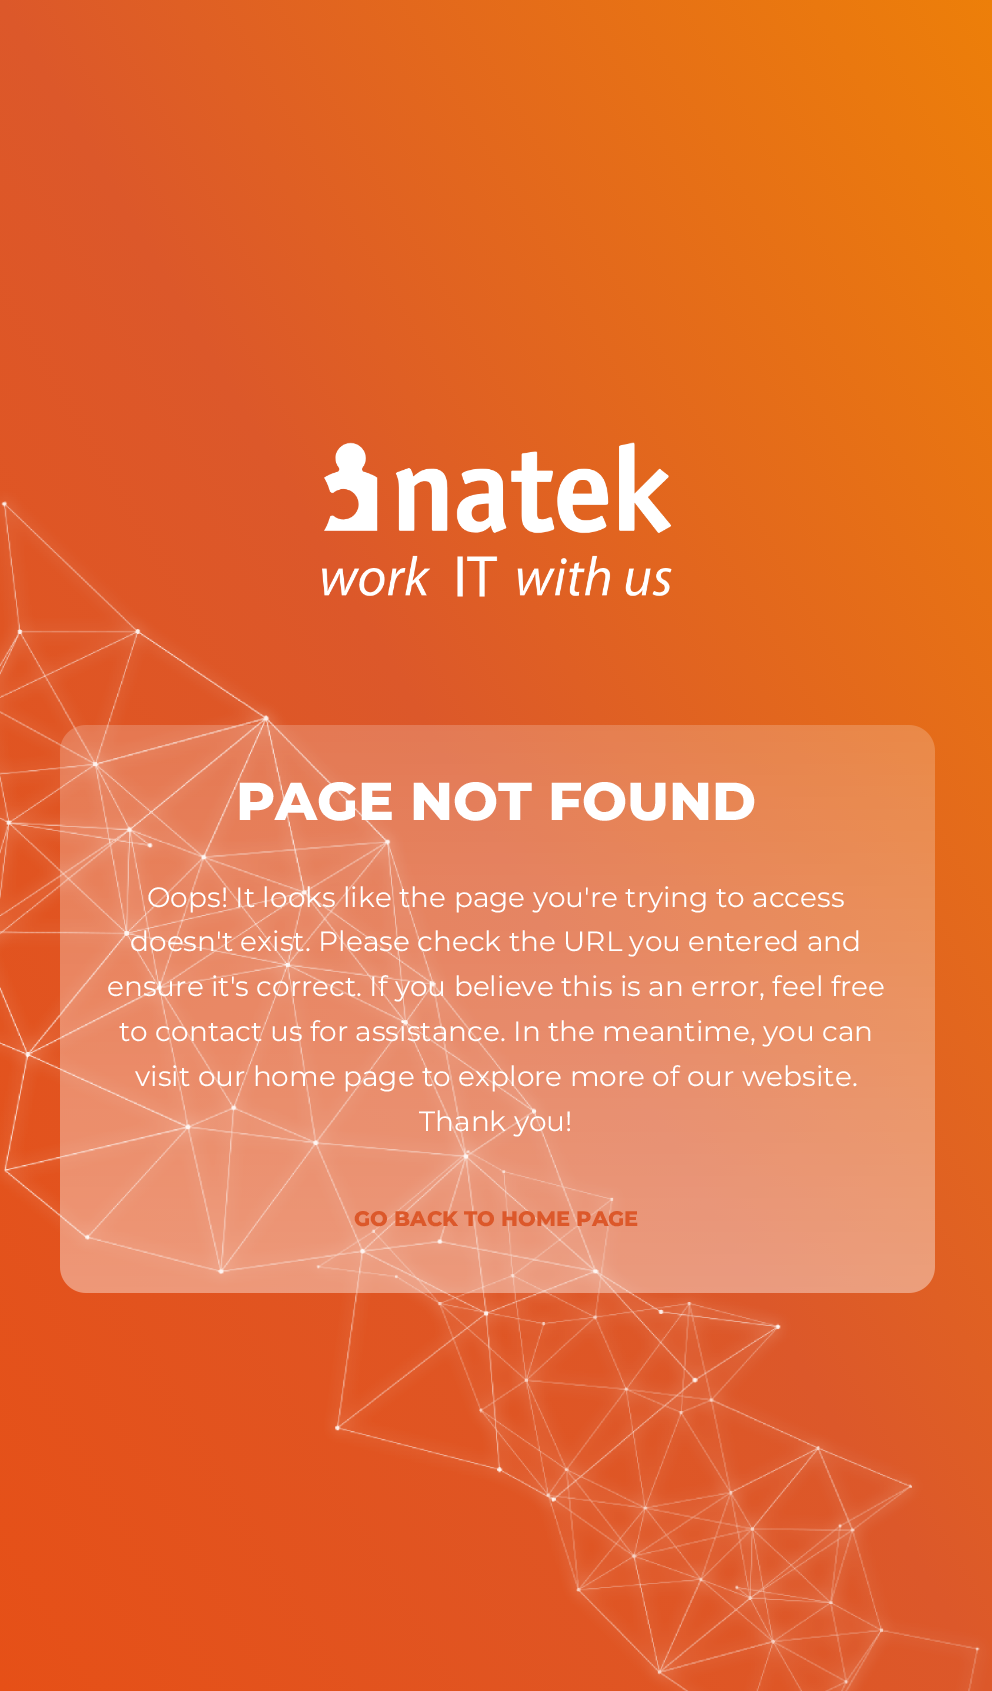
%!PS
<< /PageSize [992 1691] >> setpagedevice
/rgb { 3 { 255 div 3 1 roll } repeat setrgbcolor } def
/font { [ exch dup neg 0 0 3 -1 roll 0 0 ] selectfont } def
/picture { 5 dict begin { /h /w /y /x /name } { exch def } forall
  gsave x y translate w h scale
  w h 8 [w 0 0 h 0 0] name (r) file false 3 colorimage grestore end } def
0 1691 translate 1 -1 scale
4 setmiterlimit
255 255 255 rgb
0 0 992 1691 rectfill
(img/1.rgb) 0 0 992 1691 picture
(img/2.rgb) 322 442 350 155 picture
/Montserrat-ExtraBold 53.4 font
236 820 moveto (PAGE NOT FOUND) show
/Montserrat-Regular 28 font
[
  [(Oops! It looks like the page you're trying to access) 147 907]
  [(doesn't exist. Please check the URL you entered and) 130 951]
  [(ensure it's correct. If you believe this is an error, feel free) 107 996]
  [(to contact us for assistance. In the meantime, you can) 119 1041]
  [(visit our home page to explore more of our website.) 135 1086]
  [(Thank you!) 419 1131]
] { aload pop moveto show } forall
/Montserrat-ExtraBold 21 font
220 88 42 rgb
354 1226 moveto (GO BACK TO HOME PAGE) show
showpage
